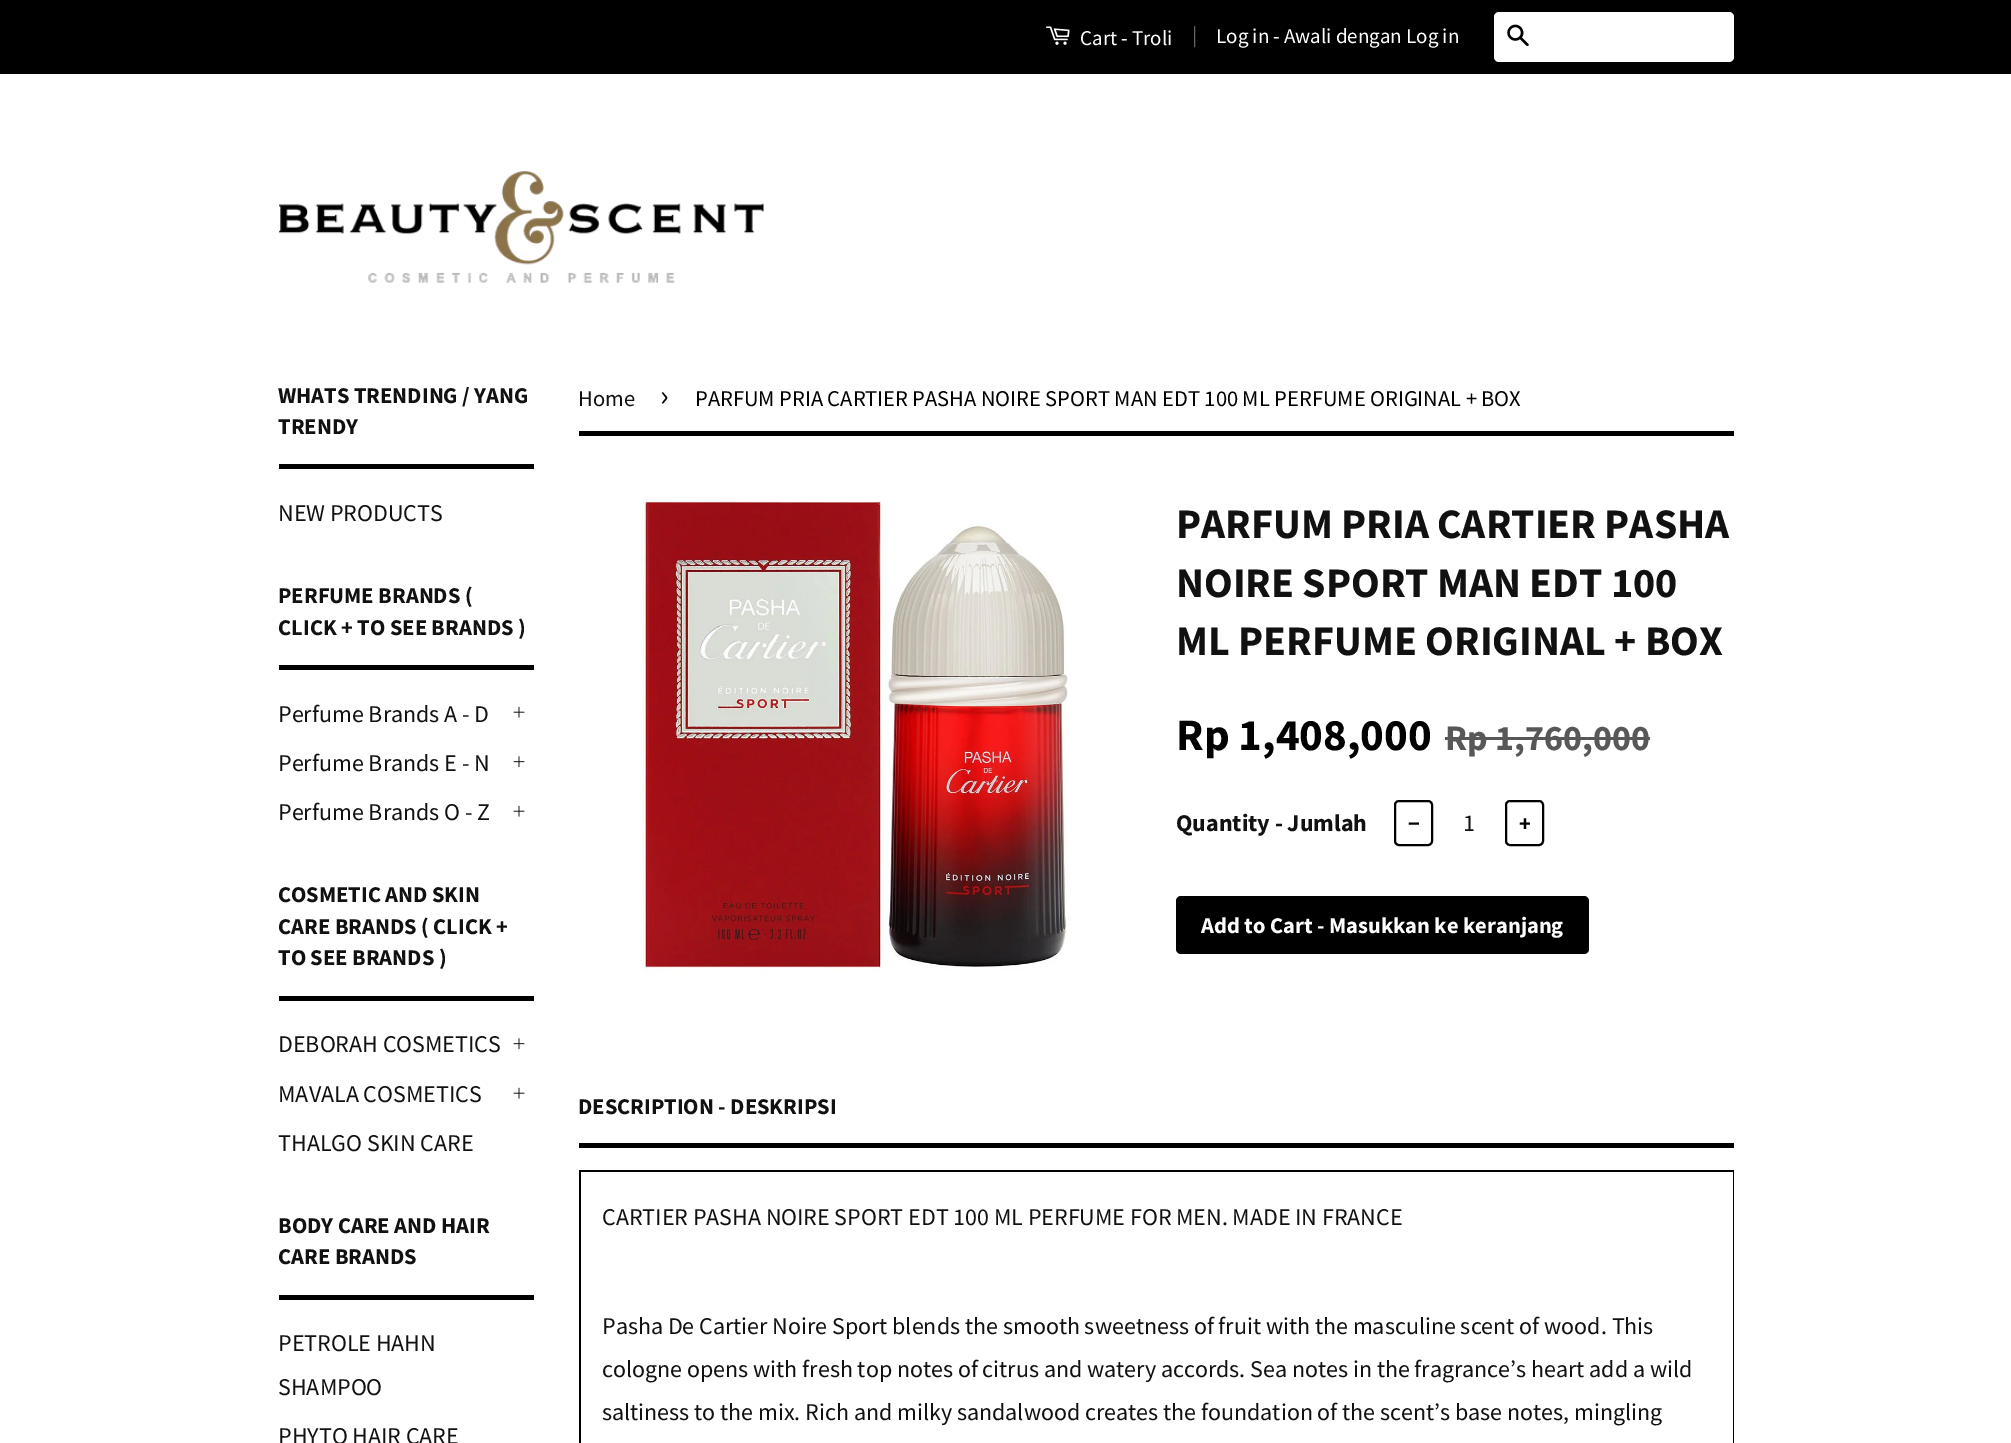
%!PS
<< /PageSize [2011 1443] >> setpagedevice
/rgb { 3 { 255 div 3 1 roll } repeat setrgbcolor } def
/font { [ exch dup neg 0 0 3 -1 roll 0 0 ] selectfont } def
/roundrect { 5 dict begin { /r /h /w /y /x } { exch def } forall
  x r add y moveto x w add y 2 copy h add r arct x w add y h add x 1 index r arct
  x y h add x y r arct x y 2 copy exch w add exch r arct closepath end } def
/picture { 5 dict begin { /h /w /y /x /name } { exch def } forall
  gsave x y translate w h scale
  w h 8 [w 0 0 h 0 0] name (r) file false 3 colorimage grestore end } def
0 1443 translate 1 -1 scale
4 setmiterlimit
255 255 255 rgb
0 0 2011 1443 rectfill
0 0 0 rgb
0 0 2011 74 rectfill
(img/1.rgb) 1046 26 24 19 picture
255 255 255 rgb
1494 12 240 50 5 roundrect fill
(img/2.rgb) 1507 24 22 23 picture
(img/3.rgb) 279 171 485 112 picture
0 0 0 rgb
279 464 255 5 rectfill
279 665 255 5 rectfill
(img/4.rgb) 513 706 12 12 picture
(img/5.rgb) 513 756 12 12 picture
(img/4.rgb) 513 805 12 12 picture
279 996 255 5 rectfill
(img/5.rgb) 513 1038 12 12 picture
(img/4.rgb) 513 1087 12 12 picture
279 1295 255 5 rectfill
579 431 1155 5 rectfill
(img/6.rgb) 641 501 427 472 picture
88 88 88 rgb
1445 737 205 3 rectfill
0 0 0 rgb
2 setlinewidth
1395 801 37 44 4 roundrect stroke
1506 801 37 44 4 roundrect stroke
1176 896 413 58 5 roundrect fill
[
  [579 1143 1155 5 0 0 0]
  [579 1170 1155 2 0 0 0]
  [1733 1170 1 273 0 0 0]
  [579 1170 2 273 0 0 0]
] { aload pop rgb rectfill } forall
/SourceSansPro-Regular 21 font
255 255 255 rgb
1080 45 moveto (Cart - Troli) show
102 102 102 rgb
1192 42 moveto (|) show
255 255 255 rgb
1216 43 moveto (Log in - Awali dengan Log in) show
/SourceSansPro-Bold 22.5 font
17 17 17 rgb
278 403 moveto (WHATS TRENDING / YANG) show
278 434 moveto (TRENDY) show
/SourceSansPro-Regular 24 font
278 521 moveto (NEW PRODUCTS) show
/SourceSansPro-Bold 22.5 font
278 603 moveto (PERFUME BRANDS \() show
278 635 moveto (CLICK + TO SEE BRANDS \)) show
/SourceSansPro-Regular 24 font
[
  [(Perfume Brands A - D) 278 722]
  [(Perfume Brands E - N) 278 771]
  [(Perfume Brands O - Z) 278 820]
] { aload pop moveto show } forall
/SourceSansPro-Bold 22.5 font
[
  [(COSMETIC AND SKIN) 278 902]
  [(CARE BRANDS \( CLICK +) 278 934]
  [(TO SEE BRANDS \)) 278 965]
] { aload pop moveto show } forall
/SourceSansPro-Regular 24 font
[
  [(DEBORAH COSMETICS) 278 1052]
  [(MAVALA COSMETICS) 278 1102]
  [(THALGO SKIN CARE) 278 1151]
] { aload pop moveto show } forall
/SourceSansPro-Bold 22.5 font
278 1233 moveto (BODY CARE AND HAIR) show
278 1264 moveto (CARE BRANDS) show
/SourceSansPro-Regular 24 font
[
  [(PETROLE HAHN) 278 1351]
  [(SHAMPOO) 278 1395]
  [(PHYTO HAIR CARE) 278 1444]
] { aload pop moveto show } forall
/SourceSansPro-Regular 22.5 font
578 406 moveto (Home) show
/SourceSansPro-Regular 32 font
0 0 0 rgb
660 406 moveto (›) show
/SourceSansPro-Regular 22.5 font
695 406 moveto (PARFUM PRIA CARTIER PASHA NOIRE SPORT MAN EDT 100 ML PERFUME ORIGINAL + BOX) show
/SourceSansPro-Bold 42 font
17 17 17 rgb
[
  [(PARFUM PRIA CARTIER PASHA) 1176 538]
  [(NOIRE SPORT MAN EDT 100) 1176 597]
  [(ML PERFUME ORIGINAL + BOX) 1176 655]
] { aload pop moveto show } forall
/SourceSansPro-Bold 45 font
0 0 0 rgb
1176 750 moveto (Rp 1,408,000) show
/SourceSansPro-Bold 36 font
88 88 88 rgb
1445 750 moveto (Rp 1,760,000) show
/SourceSansPro-Bold 24 font
17 17 17 rgb
1176 831 moveto (Quantity - Jumlah) show
/SourceSansPro-Bold 22.5 font
0 0 0 rgb
1408 831 moveto (−) show
/SourceSansPro-Regular 24 font
17 17 17 rgb
1463 831 moveto (1) show
/SourceSansPro-Bold 22.5 font
0 0 0 rgb
1519 831 moveto (+) show
255 255 255 rgb
1201 933 moveto (Add to Cart - Masukkan ke keranjang) show
17 17 17 rgb
578 1114 moveto (DESCRIPTION - DESKRIPSI) show
/SourceSansPro-Regular 24 font
[
  [(CARTIER PASHA NOIRE SPORT EDT 100 ML PERFUME FOR MEN. MADE IN FRANCE) 602 1225]
  [(Pasha De Cartier Noire Sport blends the smooth sweetness of fruit with the masculine scent of wood. This) 602 1334]
  [(cologne opens with fresh top notes of citrus and watery accords. Sea notes in the fragrance’s heart add a wild) 602 1377]
  [(saltiness to the mix. Rich and milky sandalwood creates the foundation of the scent’s base notes, mingling) 602 1420]
] { aload pop moveto show } forall
showpage
